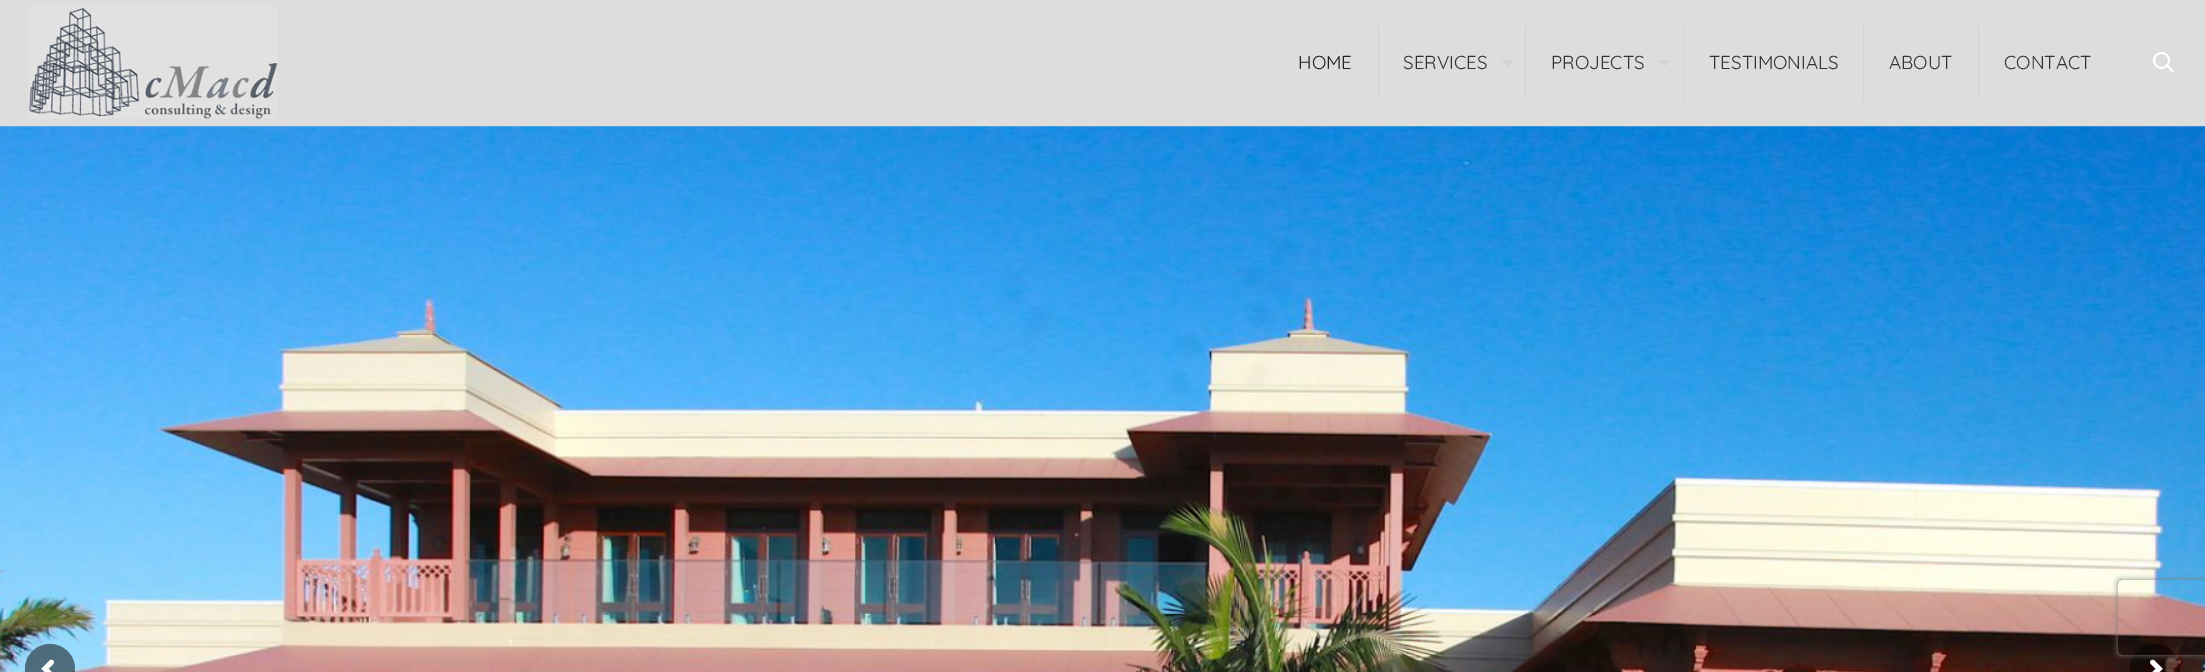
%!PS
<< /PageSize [2205 672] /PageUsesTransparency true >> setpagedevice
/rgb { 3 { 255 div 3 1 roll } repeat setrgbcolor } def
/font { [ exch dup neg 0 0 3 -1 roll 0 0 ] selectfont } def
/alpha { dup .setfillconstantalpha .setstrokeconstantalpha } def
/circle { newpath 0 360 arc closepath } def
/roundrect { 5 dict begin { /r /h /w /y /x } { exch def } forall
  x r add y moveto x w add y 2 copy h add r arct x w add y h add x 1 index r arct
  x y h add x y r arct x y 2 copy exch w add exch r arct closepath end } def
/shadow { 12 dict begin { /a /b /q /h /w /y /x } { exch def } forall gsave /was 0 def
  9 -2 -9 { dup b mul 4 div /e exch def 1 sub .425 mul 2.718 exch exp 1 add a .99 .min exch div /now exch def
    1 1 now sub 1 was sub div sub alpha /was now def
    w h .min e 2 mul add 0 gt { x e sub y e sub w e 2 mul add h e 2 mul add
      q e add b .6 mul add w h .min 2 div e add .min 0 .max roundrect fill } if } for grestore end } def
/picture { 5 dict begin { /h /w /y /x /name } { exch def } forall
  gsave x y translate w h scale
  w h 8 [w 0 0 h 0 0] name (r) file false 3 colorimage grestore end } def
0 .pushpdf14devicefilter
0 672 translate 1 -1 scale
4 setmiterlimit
221 221 221 rgb
0 0 2205 672 rectfill
(img/1.rgb) 28 6 250 113 picture
210 210 210 rgb
1378 25 1 75 rectfill
1525 25 1 75 rectfill
211 211 211 rgb
1501 60 moveto 1514 60 lineto 1507.5 66 lineto closepath fill
210 210 210 rgb
1683 25 1 75 rectfill
211 211 211 rgb
1659 60 moveto 1671 60 lineto 1665 66 lineto closepath fill
210 210 210 rgb
1863 25 1 75 rectfill
1978 25 1 75 rectfill
255 255 255 rgb
1.9 setlinewidth
2161.5 60.5 7.5 circle stroke
2167 65.5 moveto 2173.5 72 lineto stroke
(img/2.rgb) 0 126 2205 546 picture
0.5 alpha
0 0 0 rgb
50 669 25 circle fill
1 alpha
(img/3.rgb) 41 659 14 13 picture
0.5 alpha
2155 669 25 circle fill
1 alpha
(img/4.rgb) 2150 659 13 13 picture
gsave
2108 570 moveto 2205 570 lineto 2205 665 lineto 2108 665 lineto closepath 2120.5 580 moveto 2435.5 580 lineto 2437 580 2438 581 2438 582.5 curveto 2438 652.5 lineto 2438 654 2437 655 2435.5 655 curveto 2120.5 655 lineto 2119 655 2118 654 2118 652.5 curveto 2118 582.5 lineto 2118 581 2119 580 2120.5 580 curveto closepath eoclip newpath
128 128 128 rgb
2118 580 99 75 2.5 3 1 shadow
grestore
/Quicksand-Regular 18.75 font
34 34 34 rgb
1298 69 moveto (HOME) show
51 51 51 rgb
[
  [(SERVICES) 1403 69]
  [(PROJECTS) 1551 69]
  [(TESTIMONIALS) 1709 69]
  [(ABOUT) 1889 69]
  [(CONTACT) 2004 69]
] { aload pop moveto show } forall
.poppdf14devicefilter showpage
